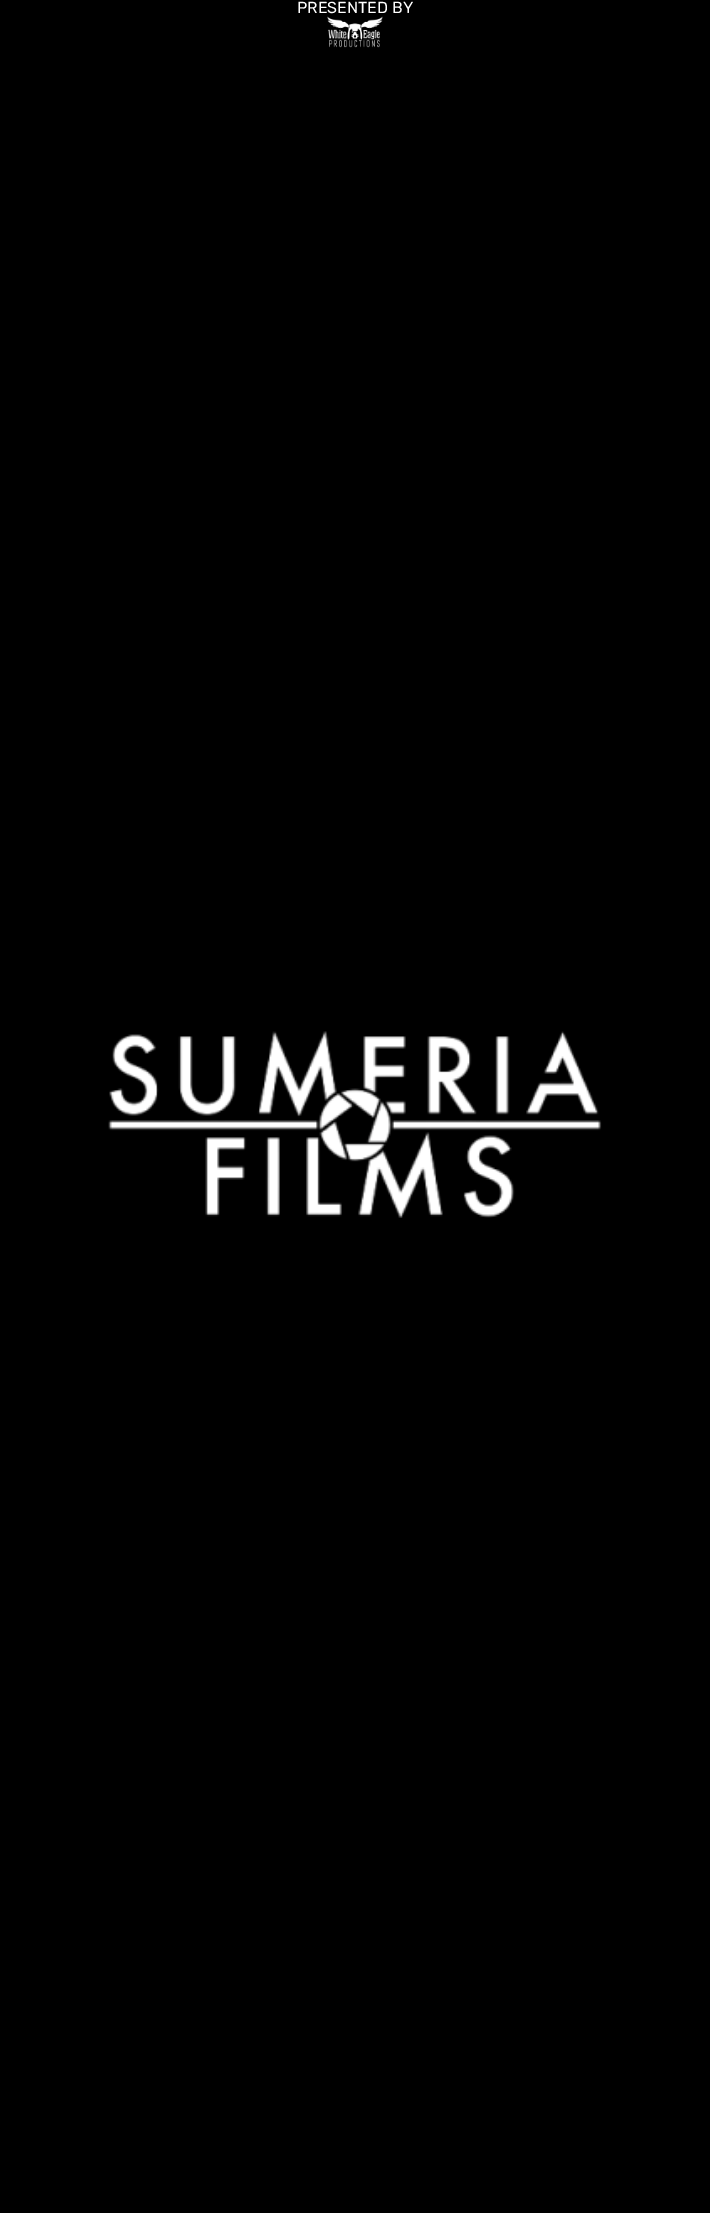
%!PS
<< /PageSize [710 2213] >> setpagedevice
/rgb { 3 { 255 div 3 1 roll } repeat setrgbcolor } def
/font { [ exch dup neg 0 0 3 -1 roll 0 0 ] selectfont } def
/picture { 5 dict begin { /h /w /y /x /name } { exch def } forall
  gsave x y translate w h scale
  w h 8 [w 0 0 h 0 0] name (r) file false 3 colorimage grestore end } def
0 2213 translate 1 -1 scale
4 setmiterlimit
0 0 0 rgb
0 0 710 2213 rectfill
(img/1.rgb) 327 16 56 32 picture
(img/2.rgb) 108 1031 494 187 picture
/Rubik-Regular 16 font
255 255 255 rgb
297 13 moveto (PRESENTED BY) show
showpage
